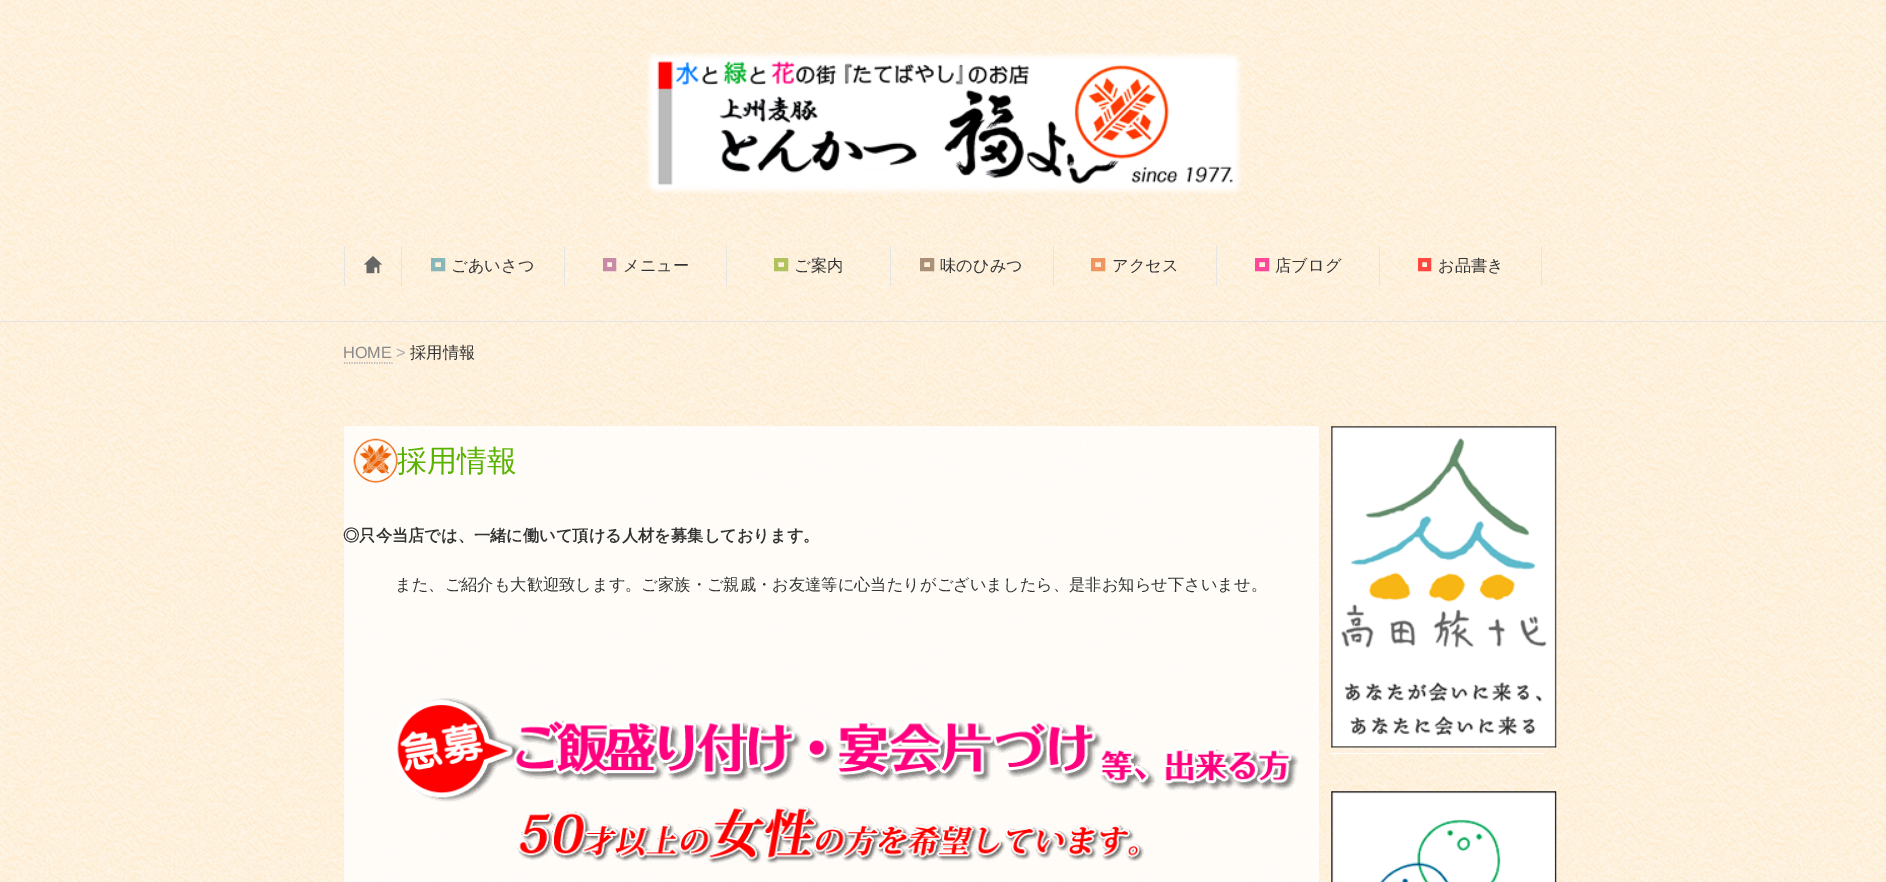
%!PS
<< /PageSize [1886 882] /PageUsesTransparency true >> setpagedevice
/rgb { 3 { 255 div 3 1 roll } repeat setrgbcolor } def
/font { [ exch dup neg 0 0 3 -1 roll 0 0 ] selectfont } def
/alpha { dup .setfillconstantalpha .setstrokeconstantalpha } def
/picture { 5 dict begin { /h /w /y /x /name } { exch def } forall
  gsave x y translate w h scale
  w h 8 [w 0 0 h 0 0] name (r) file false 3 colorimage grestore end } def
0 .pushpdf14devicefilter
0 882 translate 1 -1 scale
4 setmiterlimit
255 255 255 rgb
0 0 1886 882 rectfill
(img/1.rgb) 0 0 1886 882 picture
(img/2.rgb) 646 52 596 142 picture
[
  [0 321 1886 1 229 229 229]
  [344 246 1 40 229 229 229]
  [401 246 1 40 229 229 229]
] { aload pop rgb rectfill } forall
(img/3.rgb) 363 256 20 18 picture
564 246 1 40 rectfill
0.7 alpha
86 158 171 rgb
4 setlinewidth
433 260 10 9 rectstroke
1 alpha
229 229 229 rgb
726 246 1 40 rectfill
0.7 alpha
175 95 144 rgb
605 260 9 9 rectstroke
1 alpha
229 229 229 rgb
890 246 1 40 rectfill
0.7 alpha
145 175 41 rgb
776 260 10 9 rectstroke
1 alpha
229 229 229 rgb
1053 246 1 40 rectfill
0.7 alpha
135 103 78 rgb
922 260 10 9 rectstroke
1 alpha
229 229 229 rgb
1216 246 1 40 rectfill
0.7 alpha
234 110 43 rgb
1093 260 10 9 rectstroke
1 alpha
229 229 229 rgb
1379 246 1 40 rectfill
0.7 alpha
255 0 127 rgb
1257 260 10 9 rectstroke
1 alpha
229 229 229 rgb
1541 246 1 40 rectfill
0.7 alpha
255 0 0 rgb
1420 260 9 9 rectstroke
1 alpha
170 170 170 rgb
1.2 setlinewidth
[1.25 1.25] 0 setdash
344 363 moveto 392.5 363 lineto stroke
0.8 alpha
255 255 255 rgb
344 426 975 456 rectfill
1 alpha
(img/4.rgb) 353 438 45 45 picture
(img/5.rgb) 393 698 906 166 picture
1331 753 213 1 rectfill
(img/6.rgb) 1331 426 226 322 picture
(img/7.rgb) 1331 791 226 91 picture
/WenQuanYiZenHei-Medium 16.25 font
51 51 51 rgb
[
  [(ごあいさつ) 451 271]
  [(メニュー) 623 271]
  [(ご案内) 794 271]
  [(味のひみつ) 940 271]
  [(アクセス) 1112 271]
  [(店ブログ) 1275 271]
  [(お品書き) 1438 271]
] { aload pop moveto show } forall
/LiberationSans-Regular 16.25 font
136 136 136 rgb
343 358 moveto (HOME) show
170 170 170 rgb
396 358 moveto (>) show
/WenQuanYiZenHei-Medium 16.25 font
51 51 51 rgb
410 358 moveto (採用情報) show
/WenQuanYiZenHei-Medium 30 font
89 178 0 rgb
397 471 moveto (採用情報) show
/WenQuanYiZenHei-Bold 16.25 font
51 51 51 rgb
343 541 moveto (◎只今当店では、一緒に働いて頂ける人材を募集しております。) show
/WenQuanYiZenHei-Medium 16.25 font
395 590 moveto (また、ご紹介も大歓迎致します。ご家族・ご親戚・お友達等に心当たりがございましたら、是非お知らせ下さいませ。) show
.poppdf14devicefilter showpage
